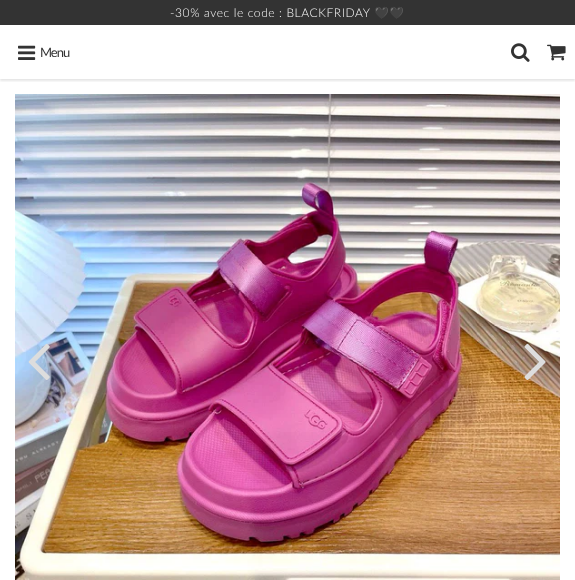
async function draw(canvas) {
	canvas.width = 575;
	canvas.height = 580;
	const c = canvas.getContext('2d');
	c.miterLimit = 4;
	c.fontKerning = 'normal';
	async function loadImage(src) {
		const img = new Image();
		img.src = src;
		await img.decode();
		return img;
	}

	c.fillStyle = '#fff';
	c.fillRect(0, 0, 575, 580);
	c.save();
	c.beginPath();
	c.rect(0, 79, 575, 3);
	c.clip();
	c.fillStyle = '#0000001a';
	c.filter = 'blur(1px)';
	c.beginPath();
	c.rect(0, 27, 575, 54);
	c.fill();
	c.filter = 'none';
	c.restore();
	c.fillStyle = '#333';
	c.fillRect(0, 0, 575, 25);
	c.letterSpacing = '0.6px';
	c.font = '300 12px Lato';
	c.fillStyle = '#fff';
	c.fillText('-30% avec le code : BLACKFRIDAY', 170, 17);
	c.font = '12px Noto Color Emoji';
	c.fillText('🖤🖤', 374, 17);
	c.drawImage(await loadImage('img1.png'), 18, 45, 18, 15);
	c.letterSpacing = '-1px';
	c.font = '13px Lato';
	c.fillStyle = '#333';
	c.fillText('Menu', 40, 57);
	c.drawImage(await loadImage('img2.png'), 511, 43, 19, 19);
	c.drawImage(await loadImage('img3.png'), 547, 44, 19, 17);
	c.drawImage(await loadImage('img4.png'), 15, 94, 545, 486);
	c.drawImage(await loadImage('img5.png'), 28, 343, 22, 37);
	c.drawImage(await loadImage('img6.png'), 524, 343, 22, 37);
}

draw(document.querySelector('canvas'));
